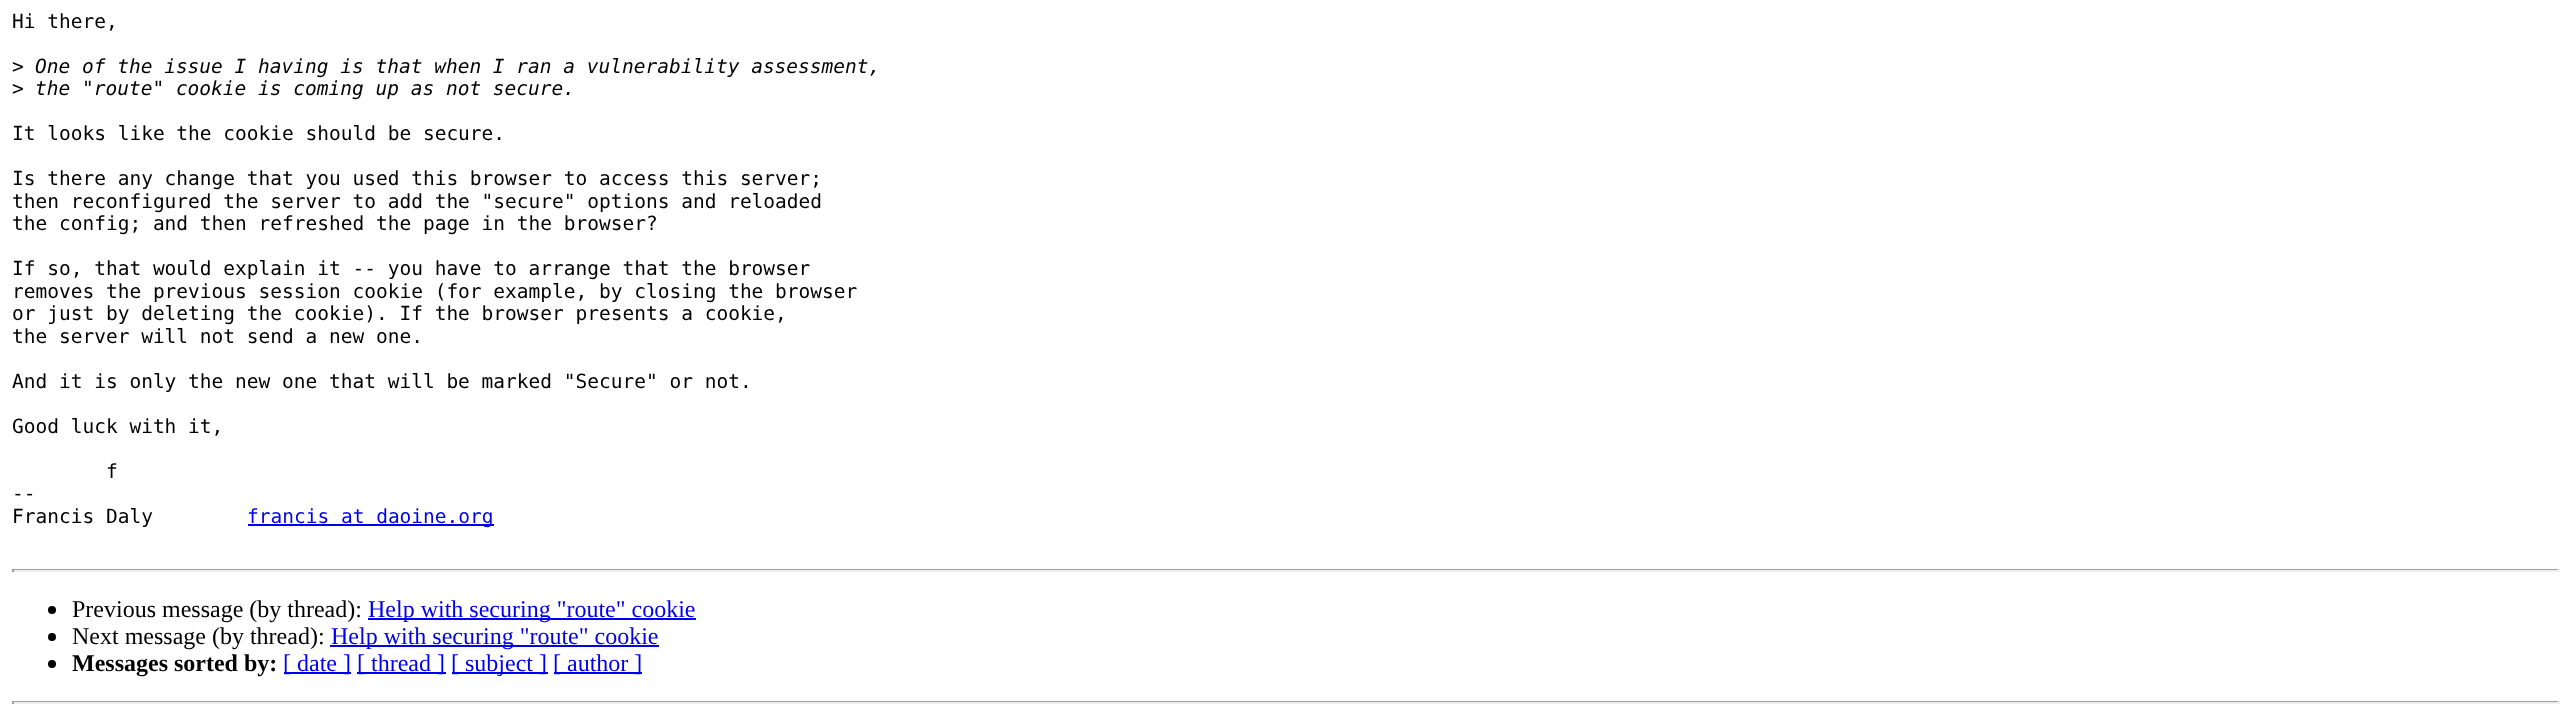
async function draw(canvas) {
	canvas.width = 2570;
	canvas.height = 711;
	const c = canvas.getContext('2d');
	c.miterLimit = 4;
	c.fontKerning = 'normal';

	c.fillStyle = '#fff';
	c.fillRect(0, 0, 2570, 711);
	c.font = '19.5px DejaVu Sans Mono';
	c.fillStyle = '#000';
	c.fillText('Hi there,', 12, 28);
	c.fillText('>', 12, 73);
	c.font = 'italic 19.5px DejaVu Sans Mono';
	c.fillText('One of the issue I having is that when I ran a vulnerability assessment,', 35, 73);
	c.font = '19.5px DejaVu Sans Mono';
	c.fillText('>', 12, 95);
	c.font = 'italic 19.5px DejaVu Sans Mono';
	c.fillText('the "route" cookie is coming up as not secure.', 35, 95);
	c.font = '19.5px DejaVu Sans Mono';
	for (const [text, x, y] of [
		['It looks like the cookie should be secure.', 12, 140],
		['Is there any change that you used this browser to access this server;', 12, 185],
		['then reconfigured the server to add the "secure" options and reloaded', 12, 208],
		['the config; and then refreshed the page in the browser?', 12, 230],
		['If so, that would explain it -- you have to arrange that the browser', 12, 275],
		['removes the previous session cookie (for example, by closing the browser', 12, 298],
		['or just by deleting the cookie). If the browser presents a cookie,', 12, 320],
		['the server will not send a new one.', 12, 343],
		['And it is only the new one that will be marked "Secure" or not.', 12, 388],
		['Good luck with it,', 12, 433],
		['f', 106, 478],
		['--', 12, 500],
		['Francis Daly', 12, 523],
	]) {
		c.fillText(text, x, y);
	}
	c.fillStyle = '#00e';
	c.fillRect(248, 524, 246, 2);
	c.fillText('francis at daoine.org', 247, 523);
	for (const [x, y, w, h, color] of [
		[12, 569, 2547, 1, '#9f9f9f'],
		[2558, 569, 2, 3, '#eee'],
		[12, 570, 2547, 2, '#eee'],
		[12, 569, 2, 3, '#9f9f9f'],
	]) {
		c.fillStyle = color;
		c.fillRect(x, y, w, h);
	}
	c.fillStyle = '#000';
	c.beginPath();
	c.arc(52, 610, 4, 0, 2 * Math.PI);
	c.fill();
	c.font = '24px Liberation Serif';
	c.fillText('Previous message (by thread):', 72, 617);
	c.fillStyle = '#00e';
	c.fillRect(368, 618, 328, 2);
	c.fillText('Help with securing "route" cookie', 368, 617);
	c.fillStyle = '#000';
	c.beginPath();
	c.arc(52, 637, 4, 0, 2 * Math.PI);
	c.fill();
	c.fillText('Next message (by thread):', 72, 644);
	c.fillStyle = '#00e';
	c.fillRect(330, 645, 329, 2);
	c.fillText('Help with securing "route" cookie', 331, 644);
	c.fillStyle = '#000';
	c.beginPath();
	c.arc(52, 664, 4, 0, 2 * Math.PI);
	c.fill();
	c.font = 'bold 24px Liberation Serif';
	c.fillText('Messages sorted by:', 72, 671);
	c.fillStyle = '#00e';
	c.fillRect(284, 672, 67, 2);
	c.font = '24px Liberation Serif';
	c.fillText('[ date ]', 283, 671);
	c.fillRect(357, 672, 89, 2);
	c.fillText('[ thread ]', 357, 671);
	c.fillRect(452, 672, 96, 2);
	c.fillText('[ subject ]', 451, 671);
	c.fillRect(554, 672, 88, 2);
	c.fillText('[ author ]', 553, 671);
	for (const [x, y, w, h, color] of [
		[12, 701, 2547, 1, '#9f9f9f'],
		[2558, 701, 2, 3, '#eee'],
		[12, 702, 2547, 2, '#eee'],
		[12, 701, 2, 3, '#9f9f9f'],
	]) {
		c.fillStyle = color;
		c.fillRect(x, y, w, h);
	}
}

draw(document.querySelector('canvas'));
